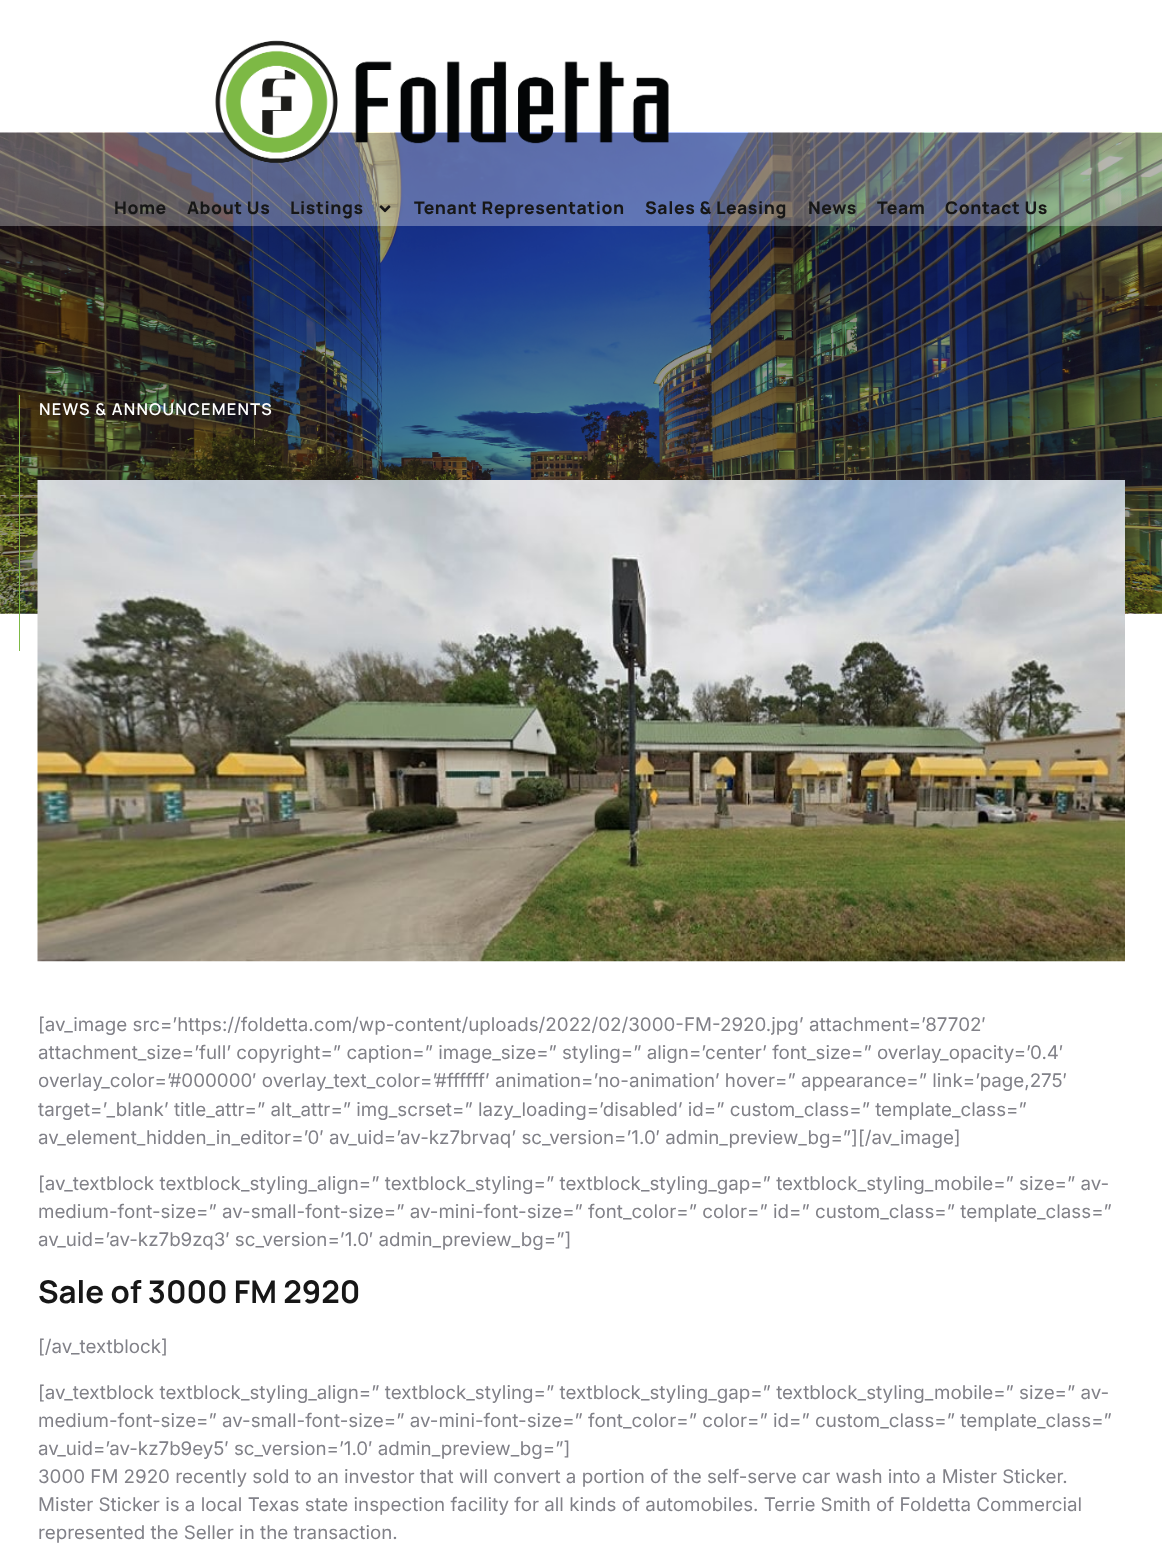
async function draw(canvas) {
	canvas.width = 1162;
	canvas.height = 1560;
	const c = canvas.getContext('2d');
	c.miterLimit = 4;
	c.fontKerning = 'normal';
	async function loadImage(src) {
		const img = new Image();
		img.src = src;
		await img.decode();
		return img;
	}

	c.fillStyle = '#fff';
	c.fillRect(0, 0, 1162, 1560);
	c.drawImage(await loadImage('img3.png'), 0, 132, 1162, 482);
	c.fillStyle = '#ffffff4f';
	c.fillRect(0, 132, 1162, 94);
	c.drawImage(await loadImage('img1.png'), 215, 40, 454, 123);
	c.letterSpacing = '0.6px';
	c.font = '800 17.5px Manrope';
	c.fillStyle = '#171717';
	for (const [text, x, y] of [
		['Home', 114, 214],
		['About Us', 187, 214],
		['Listings', 290, 214],
	]) {
		c.fillText(text, x, y);
	}
	c.drawImage(await loadImage('img2.png'), 379, 205, 12, 8);
	for (const [text, x, y] of [
		['Tenant Representation', 414, 214],
		['Sales & Leasing', 645, 214],
		['News', 808, 214],
		['Team', 877, 214],
		['Contact Us', 945, 214],
	]) {
		c.fillText(text, x, y);
	}
	c.fillStyle = '#7db945';
	c.fillRect(19, 395, 1, 256);
	c.letterSpacing = '1.25px';
	c.font = '600 16.25px Manrope';
	c.fillStyle = '#fff';
	c.fillText('NEWS & ANNOUNCEMENTS', 39, 415);
	c.drawImage(await loadImage('img4.png'), 37, 480, 1088, 482);
	c.letterSpacing = '0px';
	c.font = '18.75px Inter';
	c.fillStyle = '#818188';
	for (const [text, x, y] of [
		['[av_image src=’https://foldetta.com/wp-content/uploads/2022/02/3000-FM-2920.jpg’ attachment=’87702′', 38, 1031],
		['attachment_size=’full’ copyright=” caption=” image_size=” styling=” align=’center’ font_size=” overlay_opacity=’0.4′', 38, 1059],
		['overlay_color=’#000000′ overlay_text_color=’#ffffff’ animation=’no-animation’ hover=” appearance=” link=’page,275′', 38, 1087],
		['target=’_blank’ title_attr=” alt_attr=” img_scrset=” lazy_loading=’disabled’ id=” custom_class=” template_class=”', 38, 1116],
		['av_element_hidden_in_editor=’0′ av_uid=’av-kz7brvaq’ sc_version=’1.0′ admin_preview_bg=”][/av_image]', 38, 1144],
		['[av_textblock textblock_styling_align=” textblock_styling=” textblock_styling_gap=” textblock_styling_mobile=” size=” av-', 38, 1190],
		['medium-font-size=” av-small-font-size=” av-mini-font-size=” font_color=” color=” id=” custom_class=” template_class=”', 38, 1218],
		['av_uid=’av-kz7b9zq3′ sc_version=’1.0′ admin_preview_bg=”]', 38, 1246],
	]) {
		c.fillText(text, x, y);
	}
	c.font = 'bold 31.25px Manrope';
	c.fillStyle = '#171717';
	c.fillText('Sale of 3000 FM 2920', 38, 1303);
	c.font = '18.75px Inter';
	c.fillStyle = '#818188';
	for (const [text, x, y] of [
		['[/av_textblock]', 38, 1353],
		['[av_textblock textblock_styling_align=” textblock_styling=” textblock_styling_gap=” textblock_styling_mobile=” size=” av-', 38, 1399],
		['medium-font-size=” av-small-font-size=” av-mini-font-size=” font_color=” color=” id=” custom_class=” template_class=”', 38, 1427],
		['av_uid=’av-kz7b9ey5′ sc_version=’1.0′ admin_preview_bg=”]', 38, 1455],
		['3000 FM 2920 recently sold to an investor that will convert a portion of the self-serve car wash into a Mister Sticker.', 38, 1483],
		['Mister Sticker is a local Texas state inspection facility for all kinds of automobiles. Terrie Smith of Foldetta Commercial', 38, 1511],
		['represented the Seller in the transaction.', 38, 1539],
	]) {
		c.fillText(text, x, y);
	}
}

draw(document.querySelector('canvas'));
